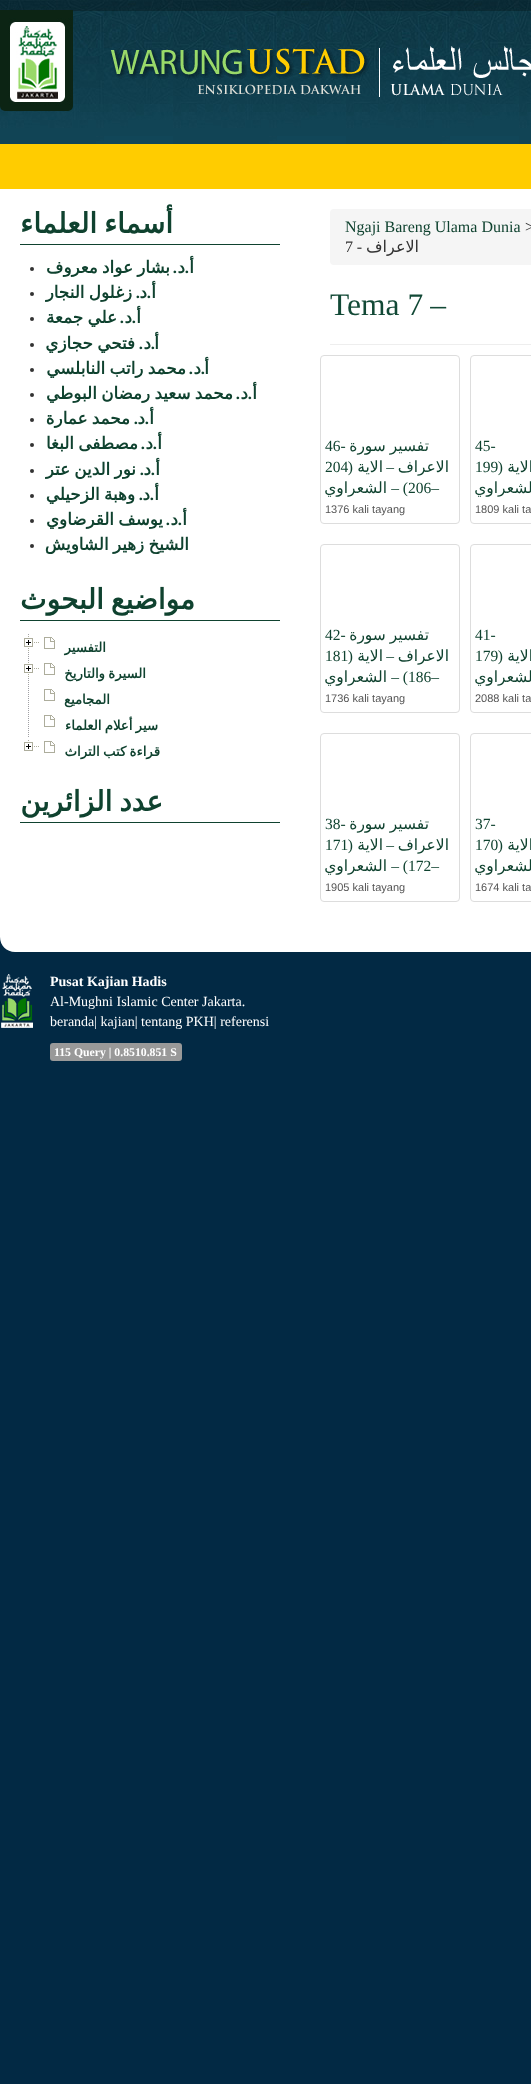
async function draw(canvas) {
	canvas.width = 531;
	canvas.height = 2084;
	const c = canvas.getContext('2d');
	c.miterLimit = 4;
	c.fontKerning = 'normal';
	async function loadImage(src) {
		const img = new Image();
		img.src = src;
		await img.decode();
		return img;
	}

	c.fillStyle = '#022944';
	c.fillRect(0, 0, 531, 2084);
	c.drawImage(await loadImage('img1.png'), 0, 0, 531, 144);
	c.drawImage(await loadImage('img2.png'), 110, 46, 421, 51);
	c.drawImage(await loadImage('img3.png'), 0, 10, 73, 101);
	c.fillStyle = '#fc0';
	c.fillRect(0, 144, 531, 45);
	c.fillStyle = '#fff';
	c.beginPath();
	c.moveTo(0, 189);
	c.lineTo(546, 189);
	c.lineTo(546, 937);
	c.bezierCurveTo(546, 945.5, 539.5, 952, 531, 952);
	c.lineTo(15, 952);
	c.bezierCurveTo(6.5, 952, 0, 945.5, 0, 937);
	c.closePath();
	c.fill();
	c.fillStyle = '#f5f5f5';
	c.beginPath();
	c.roundRect(330, 209, 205, 56, 4);
	c.fill();
	c.font = '16px Liberation Serif';
	c.fillStyle = '#333';
	c.fillText('>', 525, 232);
	c.fillStyle = '#0f422f';
	c.fillText('Ngaji Bareng Ulama Dunia', 345, 232);
	c.direction = 'rtl';
	c.font = '16px DejaVu Sans';
	c.fillStyle = '#333';
	c.fillText('الاعراف', 419, 252);
	c.font = '16px Liberation Serif';
	c.fillText('-', 362, 252);
	c.direction = 'ltr';
	c.fillText('7', 345, 252);
	c.fillStyle = '#eee';
	c.fillRect(330, 344, 201, 1);
	c.direction = 'rtl';
	c.font = '31.5px Liberation Serif';
	c.fillStyle = '#124936';
	c.fillText('–', 446, 315);
	c.direction = 'ltr';
	c.fillText('Tema 7', 330, 315);
	c.beginPath();
	c.roundRect(470.5, 355.5, 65, 168, 3.5);
	c.strokeStyle = '#ddd';
	c.stroke();
	c.font = '15.5px Liberation Serif';
	c.fillStyle = '#0f422f';
	c.fillText('45-', 475, 451);
	c.direction = 'rtl';
	c.font = '15.5px DejaVu Sans';
	c.fillText('الاية', 533, 472);
	c.font = '15.5px Liberation Serif';
	c.fillText('(', 503, 472);
	c.direction = 'ltr';
	c.fillText('199', 475, 472);
	c.direction = 'rtl';
	c.font = '15.5px DejaVu Sans';
	c.fillText('الشعراوي', 537, 493);
	c.direction = 'ltr';
	c.font = '11px Liberation Sans';
	c.fillStyle = '#555';
	c.fillText('1809 kali ta', 475, 513);
	c.beginPath();
	c.roundRect(320.5, 355.5, 139, 168, 3.5);
	c.stroke();
	c.wordSpacing = '-1px';
	c.direction = 'rtl';
	c.font = '15.5px DejaVu Sans';
	c.fillStyle = '#0f422f';
	c.fillText('تفسير سورة', 429, 451);
	c.wordSpacing = '0px';
	c.direction = 'ltr';
	c.font = '15.5px Liberation Serif';
	c.fillText('46-', 325, 451);
	c.direction = 'rtl';
	c.font = '15.5px DejaVu Sans';
	c.fillText('الاعراف', 449, 472);
	c.font = '15.5px Liberation Serif';
	c.fillText('–', 394, 472);
	c.font = '15.5px DejaVu Sans';
	c.fillText('الاية', 383, 472);
	c.font = '15.5px Liberation Serif';
	c.fillText('(', 353, 472);
	c.direction = 'ltr';
	c.fillText('204', 325, 472);
	c.direction = 'rtl';
	c.fillText(') –', 408, 493);
	c.direction = 'ltr';
	c.fillText('206–', 408, 493);
	c.direction = 'rtl';
	c.font = '15.5px DejaVu Sans';
	c.fillText('الشعراوي', 387, 493);
	c.direction = 'ltr';
	c.font = '11px Liberation Sans';
	c.fillStyle = '#555';
	c.fillText('1376 kali tayang', 325, 513);
	c.beginPath();
	c.roundRect(470.5, 544.5, 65, 168, 3.5);
	c.stroke();
	c.font = '15.5px Liberation Serif';
	c.fillStyle = '#0f422f';
	c.fillText('41-', 475, 640);
	c.direction = 'rtl';
	c.font = '15.5px DejaVu Sans';
	c.fillText('الاية', 533, 661);
	c.font = '15.5px Liberation Serif';
	c.fillText('(', 503, 661);
	c.direction = 'ltr';
	c.fillText('179', 475, 661);
	c.direction = 'rtl';
	c.font = '15.5px DejaVu Sans';
	c.fillText('الشعراوي', 537, 682);
	c.direction = 'ltr';
	c.font = '11px Liberation Sans';
	c.fillStyle = '#555';
	c.fillText('2088 kali ta', 475, 702);
	c.beginPath();
	c.roundRect(320.5, 544.5, 139, 168, 3.5);
	c.stroke();
	c.wordSpacing = '-1px';
	c.direction = 'rtl';
	c.font = '15.5px DejaVu Sans';
	c.fillStyle = '#0f422f';
	c.fillText('تفسير سورة', 429, 640);
	c.wordSpacing = '0px';
	c.direction = 'ltr';
	c.font = '15.5px Liberation Serif';
	c.fillText('42-', 325, 640);
	c.direction = 'rtl';
	c.font = '15.5px DejaVu Sans';
	c.fillText('الاعراف', 449, 661);
	c.font = '15.5px Liberation Serif';
	c.fillText('–', 394, 661);
	c.font = '15.5px DejaVu Sans';
	c.fillText('الاية', 383, 661);
	c.font = '15.5px Liberation Serif';
	c.fillText('(', 353, 661);
	c.direction = 'ltr';
	c.fillText('181', 325, 661);
	c.fillText('186–', 408, 682);
	c.direction = 'rtl';
	c.fillText(') –', 408, 682);
	c.font = '15.5px DejaVu Sans';
	c.fillText('الشعراوي', 387, 682);
	c.direction = 'ltr';
	c.font = '11px Liberation Sans';
	c.fillStyle = '#555';
	c.fillText('1736 kali tayang', 325, 702);
	c.beginPath();
	c.roundRect(470.5, 733.5, 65, 168, 3.5);
	c.stroke();
	c.font = '15.5px Liberation Serif';
	c.fillStyle = '#0f422f';
	c.fillText('37-', 475, 829);
	c.direction = 'rtl';
	c.font = '15.5px DejaVu Sans';
	c.fillText('الاية', 533, 850);
	c.font = '15.5px Liberation Serif';
	c.fillText('(', 503, 850);
	c.direction = 'ltr';
	c.fillText('170', 475, 850);
	c.direction = 'rtl';
	c.font = '15.5px DejaVu Sans';
	c.fillText('الشعراوي', 537, 871);
	c.direction = 'ltr';
	c.font = '11px Liberation Sans';
	c.fillStyle = '#555';
	c.fillText('1674 kali ta', 475, 891);
	c.beginPath();
	c.roundRect(320.5, 733.5, 139, 168, 3.5);
	c.stroke();
	c.wordSpacing = '-1px';
	c.direction = 'rtl';
	c.font = '15.5px DejaVu Sans';
	c.fillStyle = '#0f422f';
	c.fillText('تفسير سورة', 429, 829);
	c.wordSpacing = '0px';
	c.direction = 'ltr';
	c.font = '15.5px Liberation Serif';
	c.fillText('38-', 325, 829);
	c.direction = 'rtl';
	c.font = '15.5px DejaVu Sans';
	c.fillText('الاعراف', 449, 850);
	c.font = '15.5px Liberation Serif';
	c.fillText('–', 394, 850);
	c.font = '15.5px DejaVu Sans';
	c.fillText('الاية', 383, 850);
	c.font = '15.5px Liberation Serif';
	c.fillText('(', 353, 850);
	c.direction = 'ltr';
	c.fillText('171', 325, 850);
	c.fillText('172–', 408, 871);
	c.direction = 'rtl';
	c.fillText(') –', 408, 871);
	c.font = '15.5px DejaVu Sans';
	c.fillText('الشعراوي', 387, 871);
	c.direction = 'ltr';
	c.font = '11px Liberation Sans';
	c.fillStyle = '#555';
	c.fillText('1905 kali tayang', 325, 891);
	c.fillStyle = '#0f422f';
	c.fillRect(20, 244, 260, 1);
	c.wordSpacing = '-2px';
	c.direction = 'rtl';
	c.font = 'bold 28px DejaVu Sans';
	c.fillText('أسماء العلماء', 173, 233);
	c.wordSpacing = '0px';
	c.font = 'bold 16.75px DejaVu Sans';
	c.fillText('أ', 194, 273);
	c.fillText('د', 185, 273);
	c.wordSpacing = '-1px';
	c.fillText('بشار عواد معروف', 170, 273);
	c.fillStyle = '#333';
	c.beginPath();
	c.arc(32, 269, 2, 0, 2 * Math.PI);
	c.fill();
	c.wordSpacing = '0px';
	c.font = 'bold 16.75px Liberation Serif';
	c.fillStyle = '#0f422f';
	c.fillText('.', 189, 273);
	c.fillText('.', 177, 273);
	c.font = 'bold 16.75px DejaVu Sans';
	c.fillText('أ', 156, 298);
	c.fillText('د', 147, 298);
	c.wordSpacing = '-1px';
	c.fillText('زغلول النجار', 132, 298);
	c.fillStyle = '#333';
	c.beginPath();
	c.arc(32, 294, 2, 0, 2 * Math.PI);
	c.fill();
	c.wordSpacing = '0px';
	c.font = 'bold 16.75px Liberation Serif';
	c.fillStyle = '#0f422f';
	c.fillText('.', 151, 298);
	c.fillText('.', 140, 298);
	c.font = 'bold 16.75px DejaVu Sans';
	c.fillText('أ', 141, 323);
	c.fillText('د', 132, 323);
	c.wordSpacing = '-1px';
	c.fillText('علي جمعة', 117, 323);
	c.fillStyle = '#333';
	c.beginPath();
	c.arc(32, 319, 2, 0, 2 * Math.PI);
	c.fill();
	c.wordSpacing = '0px';
	c.font = 'bold 16.75px Liberation Serif';
	c.fillStyle = '#0f422f';
	c.fillText('.', 136, 323);
	c.fillText('.', 124, 323);
	c.font = 'bold 16.75px DejaVu Sans';
	c.fillText('أ', 159, 349);
	c.fillText('د', 151, 349);
	c.wordSpacing = '-1px';
	c.fillText('فتحي حجازي', 135, 349);
	c.fillStyle = '#333';
	c.beginPath();
	c.arc(32, 345, 2, 0, 2 * Math.PI);
	c.fill();
	c.wordSpacing = '0px';
	c.font = 'bold 16.75px Liberation Serif';
	c.fillStyle = '#0f422f';
	c.fillText('.', 155, 349);
	c.fillText('.', 143, 349);
	c.font = 'bold 16.75px DejaVu Sans';
	c.fillText('أ', 209, 374);
	c.fillText('د', 201, 374);
	c.wordSpacing = '-1px';
	c.fillText('محمد راتب النابلسي', 186, 374);
	c.fillStyle = '#333';
	c.beginPath();
	c.arc(32, 370, 2, 0, 2 * Math.PI);
	c.fill();
	c.wordSpacing = '0px';
	c.font = 'bold 16.75px Liberation Serif';
	c.fillStyle = '#0f422f';
	c.fillText('.', 205, 374);
	c.fillText('.', 193, 374);
	c.font = 'bold 16.75px DejaVu Sans';
	c.fillText('أ', 257, 399);
	c.fillText('د', 248, 399);
	c.wordSpacing = '-1px';
	c.fillText('محمد سعيد رمضان البوطي', 233, 399);
	c.fillStyle = '#333';
	c.beginPath();
	c.arc(32, 395, 2, 0, 2 * Math.PI);
	c.fill();
	c.wordSpacing = '0px';
	c.font = 'bold 16.75px Liberation Serif';
	c.fillStyle = '#0f422f';
	c.fillText('.', 252, 399);
	c.fillText('.', 240, 399);
	c.font = 'bold 16.75px DejaVu Sans';
	c.fillText('أ', 154, 424);
	c.fillText('د', 145, 424);
	c.wordSpacing = '-1px';
	c.fillText('محمد عمارة', 130, 424);
	c.fillStyle = '#333';
	c.beginPath();
	c.arc(32, 420, 2, 0, 2 * Math.PI);
	c.fill();
	c.wordSpacing = '0px';
	c.font = 'bold 16.75px Liberation Serif';
	c.fillStyle = '#0f422f';
	c.fillText('.', 149, 424);
	c.fillText('.', 138, 424);
	c.font = 'bold 16.75px DejaVu Sans';
	c.fillText('أ', 162, 449);
	c.fillText('د', 153, 449);
	c.wordSpacing = '-1px';
	c.fillText('مصطفى البغا', 138, 449);
	c.fillStyle = '#333';
	c.beginPath();
	c.arc(32, 445, 2, 0, 2 * Math.PI);
	c.fill();
	c.wordSpacing = '0px';
	c.font = 'bold 16.75px Liberation Serif';
	c.fillStyle = '#0f422f';
	c.fillText('.', 157, 449);
	c.fillText('.', 145, 449);
	c.font = 'bold 16.75px DejaVu Sans';
	c.fillText('أ', 160, 475);
	c.fillText('د', 151, 475);
	c.wordSpacing = '-1px';
	c.fillText('نور الدين عتر', 136, 475);
	c.fillStyle = '#333';
	c.beginPath();
	c.arc(32, 471, 2, 0, 2 * Math.PI);
	c.fill();
	c.wordSpacing = '0px';
	c.font = 'bold 16.75px Liberation Serif';
	c.fillStyle = '#0f422f';
	c.fillText('.', 155, 475);
	c.fillText('.', 144, 475);
	c.font = 'bold 16.75px DejaVu Sans';
	c.fillText('أ', 159, 500);
	c.fillText('د', 150, 500);
	c.wordSpacing = '-1px';
	c.fillText('وهبة الزحيلي', 135, 500);
	c.fillStyle = '#333';
	c.beginPath();
	c.arc(32, 496, 2, 0, 2 * Math.PI);
	c.fill();
	c.wordSpacing = '0px';
	c.font = 'bold 16.75px Liberation Serif';
	c.fillStyle = '#0f422f';
	c.fillText('.', 154, 500);
	c.fillText('.', 143, 500);
	c.font = 'bold 16.75px DejaVu Sans';
	c.fillText('أ', 187, 525);
	c.fillText('د', 178, 525);
	c.wordSpacing = '-1px';
	c.fillText('يوسف القرضاوي', 163, 525);
	c.fillStyle = '#333';
	c.beginPath();
	c.arc(32, 521, 2, 0, 2 * Math.PI);
	c.fill();
	c.wordSpacing = '0px';
	c.font = 'bold 16.75px Liberation Serif';
	c.fillStyle = '#0f422f';
	c.fillText('.', 182, 525);
	c.fillText('.', 170, 525);
	c.wordSpacing = '-1px';
	c.font = 'bold 16.75px DejaVu Sans';
	c.fillText('الشيخ زهير الشاويش', 189, 550);
	c.fillStyle = '#333';
	c.beginPath();
	c.arc(32, 546, 2, 0, 2 * Math.PI);
	c.fill();
	c.fillStyle = '#0f422f';
	c.fillRect(20, 620, 260, 1);
	c.wordSpacing = '-2px';
	c.font = 'bold 28px DejaVu Sans';
	c.fillText('مواضيع البحوث', 195, 609);
	c.drawImage(await loadImage('img4.png'), 28, 634, 1, 25);
	c.wordSpacing = '0px';
	c.font = 'bold 13.25px DejaVu Sans';
	c.fillText('التفسير', 106, 652);
	c.drawImage(await loadImage('img5.png'), 44, 637, 11, 12);
	c.drawImage(await loadImage('img6.png'), 24, 636, 15, 15);
	c.drawImage(await loadImage('img4.png'), 28, 660, 1, 25);
	c.wordSpacing = '-1px';
	c.fillText('السيرة والتاريخ', 146, 678);
	c.drawImage(await loadImage('img5.png'), 44, 663, 11, 12);
	c.drawImage(await loadImage('img6.png'), 24, 662, 15, 15);
	c.drawImage(await loadImage('img4.png'), 28, 686, 1, 25);
	c.wordSpacing = '0px';
	c.fillText('المجاميع', 110, 704);
	c.drawImage(await loadImage('img5.png'), 44, 689, 11, 12);
	c.drawImage(await loadImage('img4.png'), 28, 712, 1, 25);
	c.wordSpacing = '-1px';
	c.fillText('سير أعلام العلماء', 158, 730);
	c.drawImage(await loadImage('img5.png'), 44, 715, 11, 12);
	c.fillText('قراءة كتب التراث', 160, 756);
	c.drawImage(await loadImage('img5.png'), 44, 741, 11, 12);
	c.drawImage(await loadImage('img7.png'), 24, 740, 15, 11);
	c.fillRect(20, 822, 260, 1);
	c.wordSpacing = '-2px';
	c.font = 'bold 28px DejaVu Sans';
	c.fillText('عدد الزائرين', 163, 811);
	c.wordSpacing = '0px';
	c.direction = 'ltr';
	c.font = 'bold 14px Liberation Serif';
	c.fillStyle = '#fff';
	c.fillText('Pusat Kajian Hadis', 50, 986);
	c.font = '14px Liberation Serif';
	c.fillText('Al-Mughni Islamic Center Jakarta.', 50, 1006);
	c.fillText('beranda| kajian| tentang PKH| referensi', 50, 1026);
	c.drawImage(await loadImage('img8.png'), 1, 974, 32, 54);
	c.fillStyle = '#999';
	c.beginPath();
	c.roundRect(50, 1043, 132, 18, 3);
	c.fill();
	c.font = 'bold 11.75px Liberation Serif';
	c.fillStyle = '#fff';
	c.fillText('115 Query | 0.8510.851 S', 54, 1056);
}

draw(document.querySelector('canvas'));
